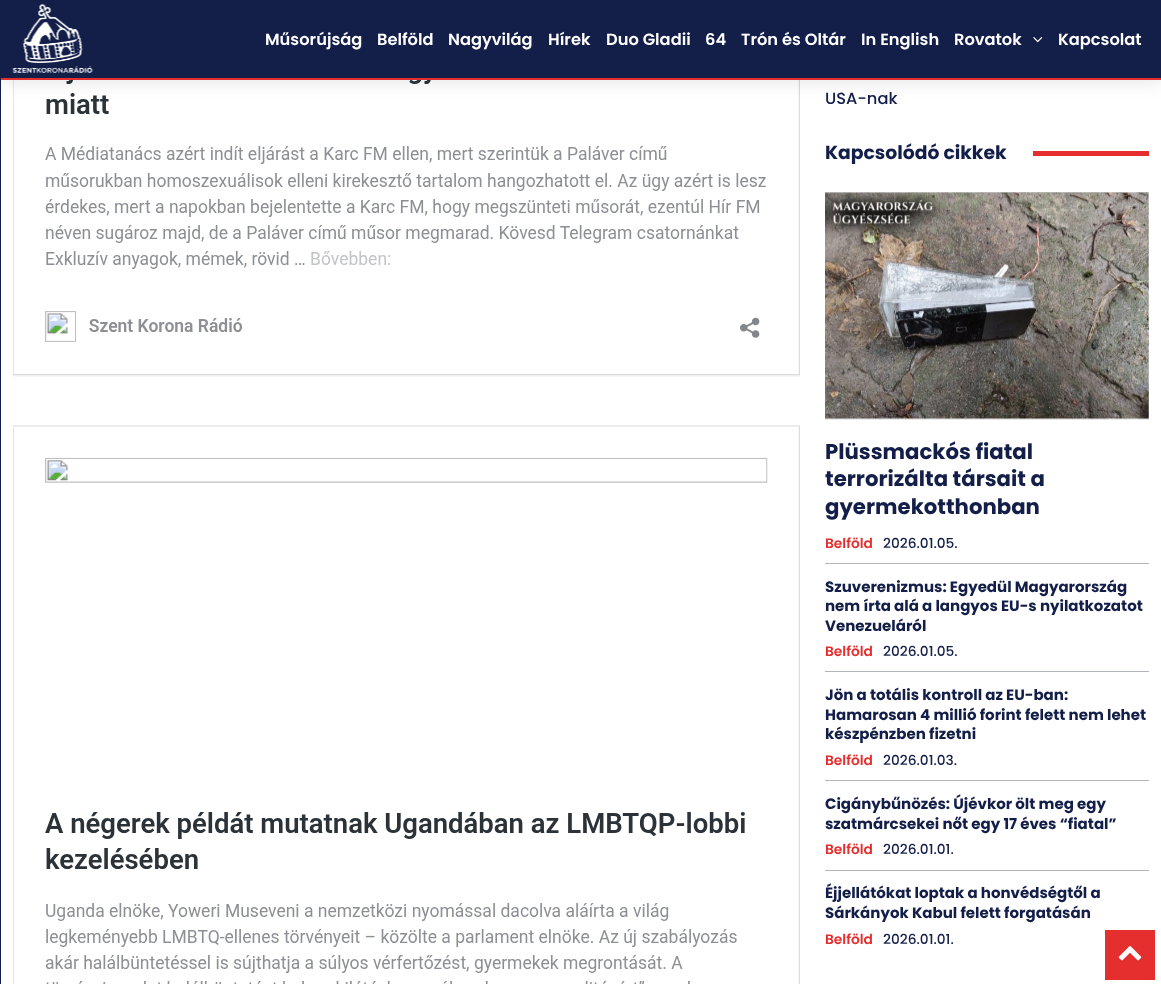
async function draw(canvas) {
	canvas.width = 1161;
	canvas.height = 984;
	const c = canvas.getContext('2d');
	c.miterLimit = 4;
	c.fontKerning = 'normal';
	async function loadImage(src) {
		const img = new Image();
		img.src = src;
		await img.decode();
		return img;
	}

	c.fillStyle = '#131f49';
	c.fillRect(0, 0, 1161, 984);
	c.drawImage(await loadImage('img1.png'), 12, 4, 81, 69);
	c.fillStyle = '#e52e2e';
	c.fillRect(1, 78, 1160, 2);
	c.fillStyle = '#fff';
	c.fillRect(1, 80, 1160, 904);
	c.drawImage(await loadImage('img3.png'), 13, 80, 787, 297);
	c.save();
	c.beginPath();
	c.moveTo(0, 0);
	c.lineTo(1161, 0);
	c.lineTo(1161, 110);
	c.lineTo(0, 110);
	c.closePath();
	c.moveTo(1, 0);
	c.lineTo(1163, 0);
	c.lineTo(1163, 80);
	c.lineTo(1, 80);
	c.closePath();
	c.clip('evenodd');
	c.fillStyle = '#0000001f';
	c.filter = 'blur(9.5px)';
	c.beginPath();
	c.rect(1, 0, 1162, 80);
	c.fill();
	c.filter = 'none';
	c.restore();
	c.font = '600 16.25px Poppins';
	for (const [text, x, y] of [
		['Műsorújság', 265, 45],
		['Belföld', 377, 45],
		['Nagyvilág', 448, 45],
		['Hírek', 548, 45],
		['Duo Gladii', 606, 45],
		['64', 705, 45],
		['Trón és Oltár', 741, 45],
		['In English', 861, 45],
		['Rovatok', 954, 45],
	]) {
		c.fillText(text, x, y);
	}
	c.drawImage(await loadImage('img2.png'), 1033, 37, 10, 6);
	c.fillText('Kapcsolat', 1058, 45);
	c.drawImage(await loadImage('img4.png'), 13, 425, 787, 559);
	c.font = '500 16.25px Poppins';
	c.fillStyle = '#131f49';
	c.fillText('USA-nak', 825, 104);
	c.font = 'bold 18.75px Poppins';
	c.fillText('Kapcsolódó cikkek', 825, 159);
	c.fillStyle = '#e52e2e';
	c.fillRect(1033, 151, 116, 5);
	c.drawImage(await loadImage('img5.png'), 825, 192, 324, 228);
	c.font = 'bold 21.25px Poppins';
	c.fillStyle = '#131f49';
	for (const [text, x, y] of [
		['Plüssmackós fiatal', 825, 459],
		['terrorizálta társait a', 825, 486],
		['gyermekotthonban', 825, 514],
	]) {
		c.fillText(text, x, y);
	}
	c.font = '600 13.75px Poppins';
	c.fillStyle = '#e52e2e';
	c.fillText('Belföld', 825, 548);
	c.font = '500 13.75px Poppins';
	c.fillStyle = '#131f49';
	c.fillText('2026.01.05.', 883, 548);
	c.fillStyle = '#b1b4bc';
	c.fillRect(825, 563, 324, 1);
	c.font = 'bold 15px Poppins';
	c.fillStyle = '#131f49';
	for (const [text, x, y] of [
		['Szuverenizmus: Egyedül Magyarország', 825, 592],
		['nem írta alá a langyos EU-s nyilatkozatot', 825, 611],
		['Venezueláról', 825, 631],
	]) {
		c.fillText(text, x, y);
	}
	c.font = '600 13.75px Poppins';
	c.fillStyle = '#e52e2e';
	c.fillText('Belföld', 825, 656);
	c.font = '500 13.75px Poppins';
	c.fillStyle = '#131f49';
	c.fillText('2026.01.05.', 883, 656);
	c.fillStyle = '#b1b4bc';
	c.fillRect(825, 671, 324, 1);
	c.font = 'bold 15px Poppins';
	c.fillStyle = '#131f49';
	for (const [text, x, y] of [
		['Jön a totális kontroll az EU-ban:', 825, 700],
		['Hamarosan 4 millió forint felett nem lehet', 825, 720],
		['készpénzben fizetni', 825, 739],
	]) {
		c.fillText(text, x, y);
	}
	c.font = '600 13.75px Poppins';
	c.fillStyle = '#e52e2e';
	c.fillText('Belföld', 825, 765);
	c.font = '500 13.75px Poppins';
	c.fillStyle = '#131f49';
	c.fillText('2026.01.03.', 883, 765);
	c.fillStyle = '#b1b4bc';
	c.fillRect(825, 780, 324, 1);
	c.font = 'bold 15px Poppins';
	c.fillStyle = '#131f49';
	c.fillText('Cigánybűnözés: Újévkor ölt meg egy', 825, 809);
	c.fillText('szatmárcsekei nőt egy 17 éves “fiatal”', 825, 829);
	c.font = '600 13.75px Poppins';
	c.fillStyle = '#e52e2e';
	c.fillText('Belföld', 825, 854);
	c.font = '500 13.75px Poppins';
	c.fillStyle = '#131f49';
	c.fillText('2026.01.01.', 883, 854);
	c.fillStyle = '#b1b4bc';
	c.fillRect(825, 870, 324, 1);
	c.font = 'bold 15px Poppins';
	c.fillStyle = '#131f49';
	c.fillText('Éjjellátókat loptak a honvédségtől a', 825, 898);
	c.fillText('Sárkányok Kabul felett forgatásán', 825, 918);
	c.font = '600 13.75px Poppins';
	c.fillStyle = '#e52e2e';
	c.fillText('Belföld', 825, 944);
	c.font = '500 13.75px Poppins';
	c.fillStyle = '#131f49';
	c.fillText('2026.01.01.', 883, 944);
	c.fillStyle = '#e52e2e';
	c.fillRect(1105, 930, 50, 50);
	c.drawImage(await loadImage('img6.png'), 1118, 946, 24, 15);
}

draw(document.querySelector('canvas'));
